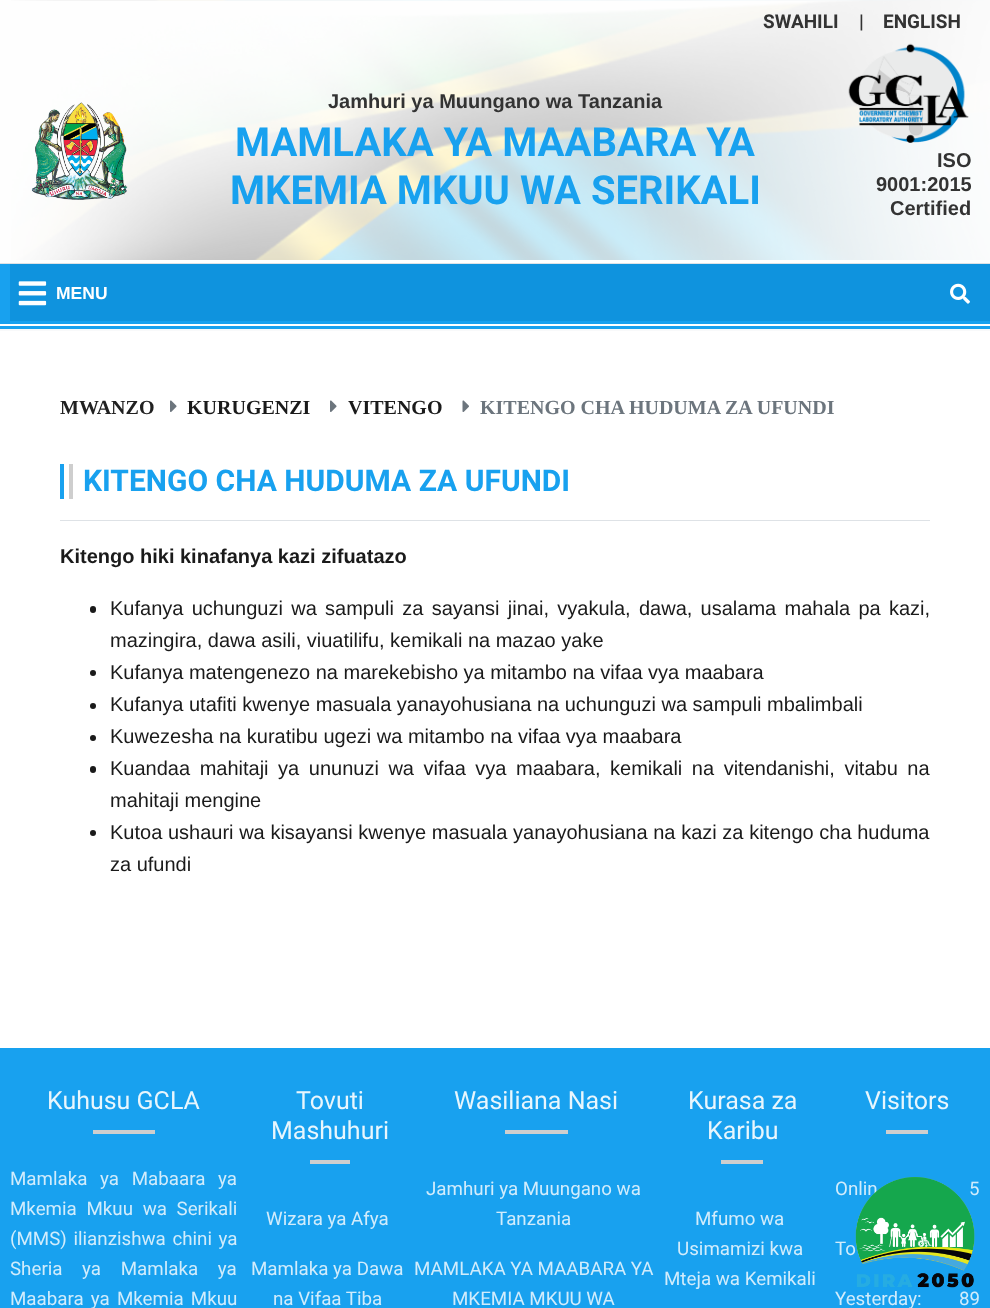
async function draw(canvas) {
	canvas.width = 990;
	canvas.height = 1308;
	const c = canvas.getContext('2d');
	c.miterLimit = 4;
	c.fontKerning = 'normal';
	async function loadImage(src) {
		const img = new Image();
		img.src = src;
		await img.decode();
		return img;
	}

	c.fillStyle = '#f8f9fa';
	c.fillRect(0, 0, 990, 1308);
	c.fillStyle = '#fefefe';
	c.fillRect(0, 0, 990, 260);
	c.drawImage(await loadImage('img1.png'), 11, 0, 979, 260);
	c.font = 'bold 19px Roboto';
	c.fillStyle = '#333';
	for (const [text, x, y] of [
		['SWAHILI', 763, 28],
		['|', 859, 28],
		['ENGLISH', 883, 28],
	]) {
		c.fillText(text, x, y);
	}
	c.drawImage(await loadImage('img2.png'), 31, 102, 97, 98);
	c.font = 'bold 20px Liberation Sans';
	c.fillText('Jamhuri ya Muungano wa Tanzania', 328, 108);
	c.font = 'bold 40px Roboto';
	c.fillStyle = '#18a1ef';
	c.fillText('MAMLAKA YA MAABARA YA', 235, 156);
	c.fillText('MKEMIA MKUU WA SERIKALI', 230, 204);
	c.drawImage(await loadImage('img3.png'), 848, 43, 121, 100);
	c.font = 'bold 20px Liberation Sans';
	c.fillStyle = '#333';
	for (const [text, x, y] of [
		['ISO', 937, 167],
		['9001:2015', 876, 191],
		['Certified', 890, 215],
	]) {
		c.fillText(text, x, y);
	}
	for (const [x, y, w, h, color] of [
		[0, 260, 990, 3, '#fff'],
		[0, 324, 990, 2, '#fff'],
		[0, 326, 990, 3, '#18a1ef'],
		[10, 264, 980, 57, '#0f93de'],
		[0, 263, 990, 1, '#dee2e6'],
		[0, 264, 10, 57, '#18a1ef'],
	]) {
		c.fillStyle = color;
		c.fillRect(x, y, w, h);
	}
	c.drawImage(await loadImage('img4.png'), 18, 281, 29, 25);
	c.font = 'bold 17.5px Liberation Sans';
	c.fillStyle = '#fff';
	c.fillText('MENU', 56, 299);
	c.drawImage(await loadImage('img5.png'), 950, 283, 20, 21);
	c.fillStyle = '#18a1ef';
	c.fillRect(0, 321, 990, 3);
	c.fillStyle = '#fff';
	c.fillRect(0, 331, 990, 717);
	c.font = 'bold 20px Liberation Serif';
	c.fillStyle = '#212121';
	c.fillText('MWANZO', 60, 414);
	c.drawImage(await loadImage('img6.png'), 170, 400, 7, 12);
	c.fillStyle = '#1a1a1a';
	c.fillText('KURUGENZI', 187, 414);
	c.drawImage(await loadImage('img6.png'), 330, 400, 7, 12);
	c.fillText('VITENGO', 348, 414);
	c.drawImage(await loadImage('img7.png'), 462, 400, 7, 12);
	c.fillStyle = '#6c757d';
	c.fillText('KITENGO CHA HUDUMA ZA UFUNDI', 480, 414);
	c.fillStyle = '#dee2e6';
	c.fillRect(60, 520, 870, 1);
	c.font = 'bold 30px Roboto';
	c.fillStyle = '#18a1ef';
	c.fillText('KITENGO CHA HUDUMA ZA UFUNDI', 83, 491);
	c.fillRect(60, 464, 4, 35);
	c.fillStyle = '#cecece';
	c.fillRect(69, 464, 4, 35);
	c.font = 'bold 20px Liberation Sans';
	c.fillStyle = '#1a1a1a';
	c.fillText('Kitengo hiki kinafanya kazi zifuatazo', 60, 563);
	c.beginPath();
	c.roundRect(90, 606, 6, 7, 3);
	c.fill();
	c.wordSpacing = '2.75px';
	c.font = '20px Liberation Sans';
	c.fillText('Kufanya uchunguzi wa sampuli za sayansi jinai, vyakula, dawa, usalama mahala pa kazi,', 110, 615);
	c.wordSpacing = '0px';
	c.fillText('mazingira, dawa asili, viuatilifu, kemikali na mazao yake', 110, 647);
	c.beginPath();
	c.arc(93, 673, 3, 0, 2 * Math.PI);
	c.fill();
	c.fillText('Kufanya matengenezo na marekebisho ya mitambo na vifaa vya maabara', 110, 679);
	c.beginPath();
	c.arc(93, 706, 3, 0, 2 * Math.PI);
	c.fill();
	c.fillText('Kufanya utafiti kwenye masuala yanayohusiana na uchunguzi wa sampuli mbalimbali', 110, 711);
	c.beginPath();
	c.arc(93, 738, 3, 0, 2 * Math.PI);
	c.fill();
	c.fillText('Kuwezesha na kuratibu ugezi wa mitambo na vifaa vya maabara', 110, 743);
	c.beginPath();
	c.roundRect(90, 766, 6, 7, 3);
	c.fill();
	c.wordSpacing = '4px';
	c.fillText('Kuandaa mahitaji ya ununuzi wa vifaa vya maabara, kemikali na vitendanishi, vitabu na', 110, 775);
	c.wordSpacing = '0px';
	c.fillText('mahitaji mengine', 110, 807);
	c.beginPath();
	c.arc(93, 833, 3, 0, 2 * Math.PI);
	c.fill();
	c.wordSpacing = '0.1px';
	c.fillText('Kutoa ushauri wa kisayansi kwenye masuala yanayohusiana na kazi za kitengo cha huduma', 110, 839);
	c.wordSpacing = '0px';
	c.fillText('za ufundi', 110, 871);
	c.fillStyle = '#18a1ef';
	c.fillRect(0, 1048, 990, 260);
	c.font = '25px Roboto';
	c.fillStyle = '#e8f6fd';
	c.fillText('Kuhusu GCLA', 47, 1109);
	c.fillStyle = '#cecece';
	c.fillRect(93, 1130, 62, 4);
	c.wordSpacing = '8px';
	c.font = '18.75px Roboto';
	c.fillStyle = '#d1ecfc';
	c.fillText('Mamlaka ya Mabaara ya', 10, 1185);
	c.wordSpacing = '5px';
	c.fillText('Mkemia Mkuu wa Serikali', 10, 1215);
	c.wordSpacing = '2px';
	c.fillText('(MMS) ilianzishwa chini ya', 10, 1245);
	c.wordSpacing = '15px';
	c.fillText('Sheria ya Mamlaka ya', 10, 1275);
	c.wordSpacing = '2.5px';
	c.fillText('Maabara ya Mkemia Mkuu', 10, 1305);
	c.wordSpacing = '0px';
	c.font = '25px Roboto';
	c.fillStyle = '#e8f6fd';
	c.fillText('Tovuti', 296, 1109);
	c.fillText('Mashuhuri', 271, 1139);
	c.fillStyle = '#cecece';
	c.fillRect(310, 1160, 40, 4);
	c.font = '18.75px Roboto';
	c.fillStyle = '#d1ecfc';
	for (const [text, x, y] of [
		['Wizara ya Afya', 266, 1225],
		['Mamlaka ya Dawa', 251, 1275],
		['na Vifaa Tiba', 273, 1305],
	]) {
		c.fillText(text, x, y);
	}
	c.font = '25px Roboto';
	c.fillStyle = '#e8f6fd';
	c.fillText('Wasiliana Nasi', 454, 1109);
	c.fillStyle = '#cecece';
	c.fillRect(505, 1130, 63, 4);
	c.font = '18.75px Roboto';
	c.fillStyle = '#d1ecfc';
	for (const [text, x, y] of [
		['Jamhuri ya Muungano wa', 426, 1195],
		['Tanzania', 496, 1225],
		['MAMLAKA YA MAABARA YA', 414, 1275],
		['MKEMIA MKUU WA', 452, 1305],
	]) {
		c.fillText(text, x, y);
	}
	c.font = '25px Roboto';
	c.fillStyle = '#e8f6fd';
	c.fillText('Kurasa za', 688, 1109);
	c.fillText('Karibu', 707, 1139);
	c.fillStyle = '#cecece';
	c.fillRect(721, 1160, 42, 4);
	c.font = '18.75px Roboto';
	c.fillStyle = '#d1ecfc';
	for (const [text, x, y] of [
		['Mfumo wa', 695, 1225],
		['Usimamizi kwa', 677, 1255],
		['Mteja wa Kemikali', 664, 1285],
	]) {
		c.fillText(text, x, y);
	}
	c.font = '25px Roboto';
	c.fillStyle = '#e8f6fd';
	c.fillText('Visitors', 865, 1109);
	c.fillStyle = '#cecece';
	c.fillRect(886, 1130, 42, 4);
	c.font = '18.75px Roboto';
	c.fillStyle = '#d1ecfc';
	for (const [text, x, y] of [
		['Onlin', 835, 1195],
		['5', 969, 1195],
		['To', 835, 1255],
		['Yesterday:', 835, 1305],
		['89', 959, 1305],
	]) {
		c.fillText(text, x, y);
	}
	c.drawImage(await loadImage('img8.png'), 855, 1177, 120, 111);
}

draw(document.querySelector('canvas'));
